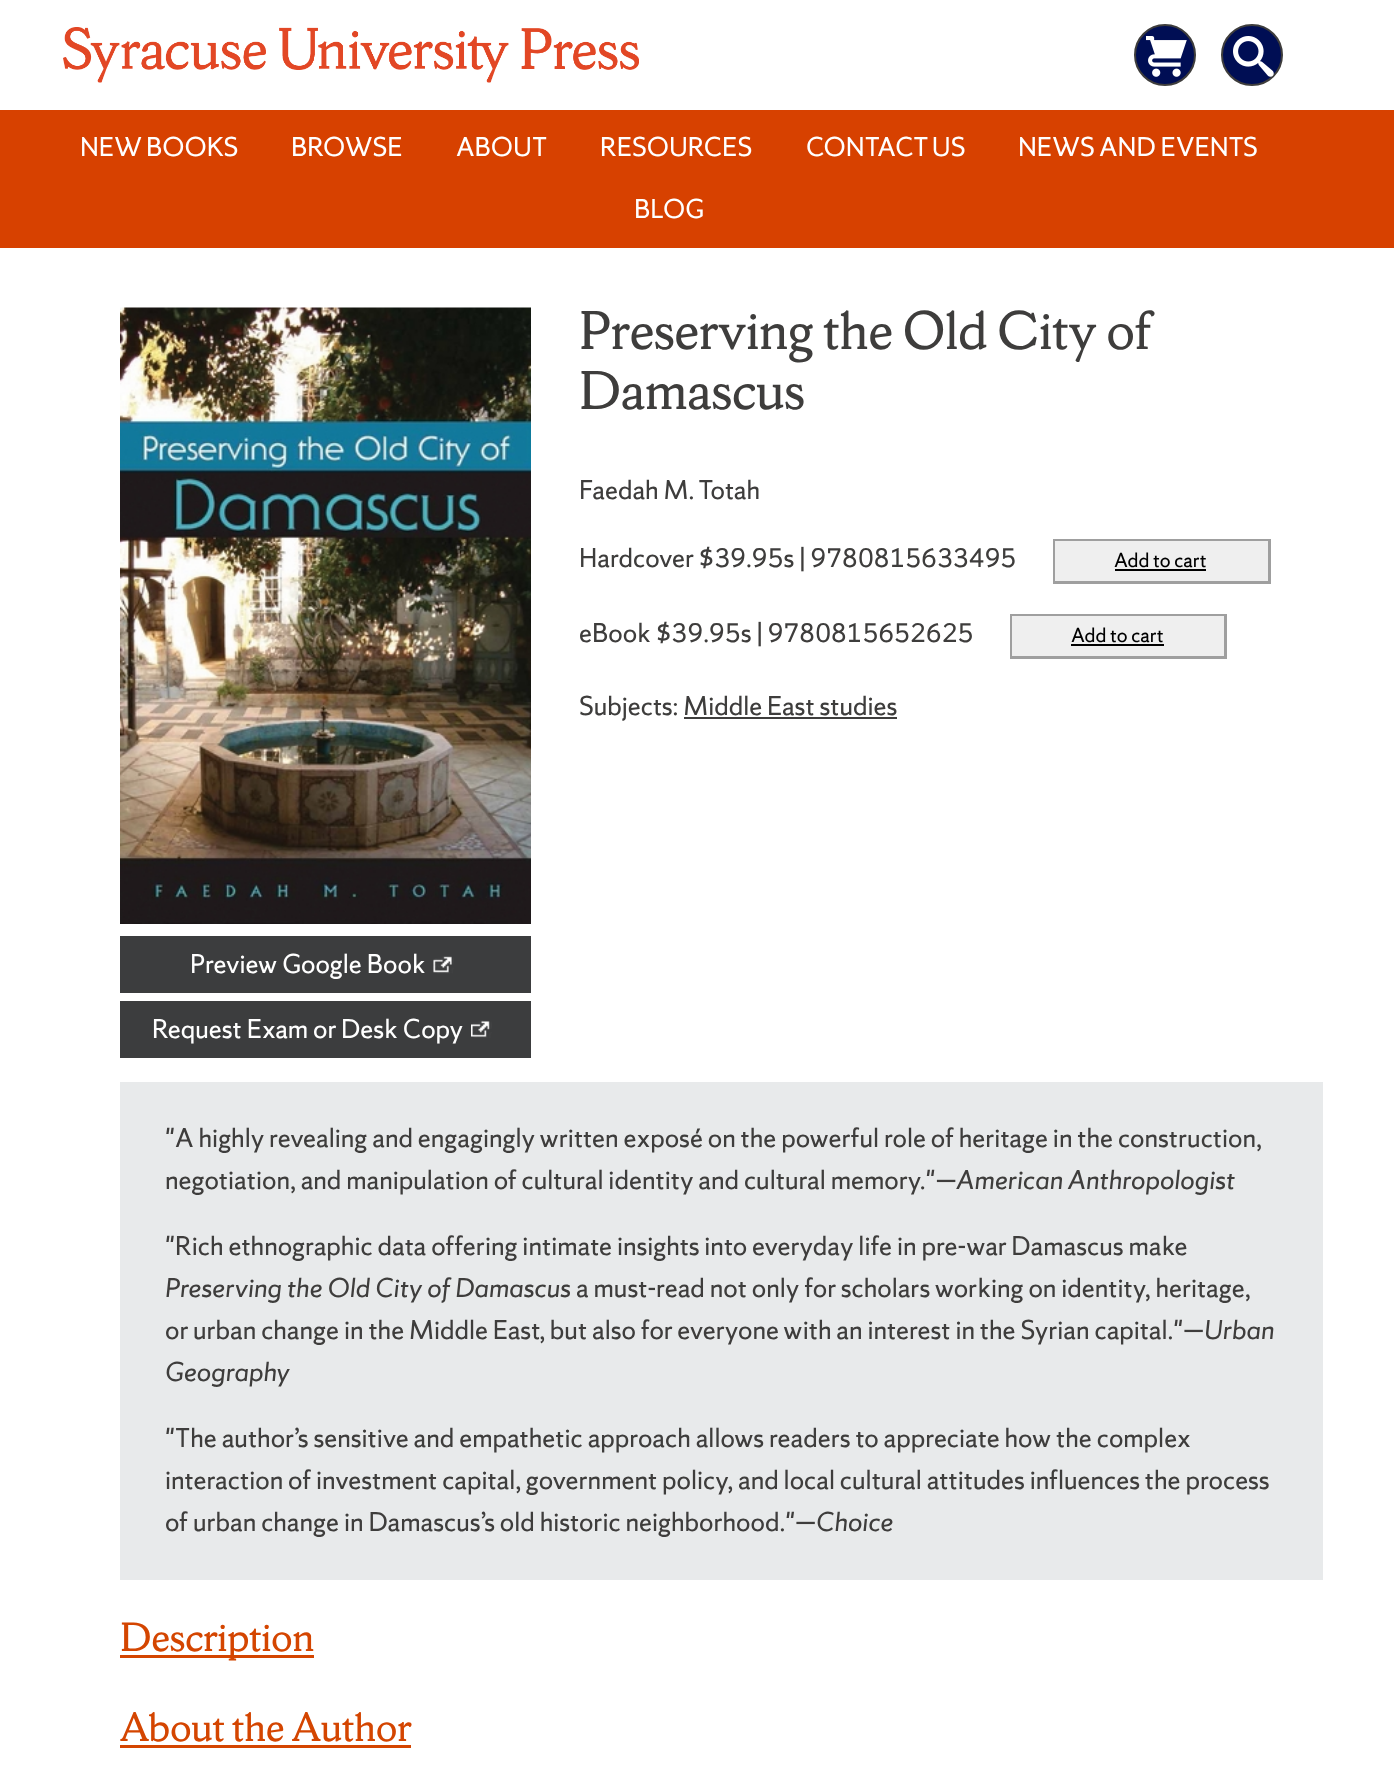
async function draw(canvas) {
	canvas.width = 1394;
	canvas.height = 1765;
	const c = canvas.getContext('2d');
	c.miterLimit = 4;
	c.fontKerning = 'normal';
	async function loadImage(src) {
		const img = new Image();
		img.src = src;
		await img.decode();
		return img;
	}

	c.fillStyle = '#fff';
	c.fillRect(0, 0, 1394, 1765);
	c.drawImage(await loadImage('img1.png'), 63, 27, 576, 56);
	c.fillStyle = '#000e54';
	c.beginPath();
	c.arc(1165, 55, 30, 0, 2 * Math.PI);
	c.fill();
	c.strokeStyle = '#3e3d3c';
	c.lineWidth = 2;
	c.stroke();
	c.drawImage(await loadImage('img2.png'), 1146, 36, 41, 41);
	c.beginPath();
	c.arc(1252, 55, 30, 0, 2 * Math.PI);
	c.fill();
	c.stroke();
	c.drawImage(await loadImage('img3.png'), 1233, 36, 41, 41);
	c.fillStyle = '#d74100';
	c.fillRect(0, 110, 1394, 138);
	c.font = '24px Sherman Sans';
	c.fillStyle = '#fff';
	for (const [text, x, y] of [
		['NEW BOOKS', 80, 156],
		['BROWSE', 291, 156],
		['ABOUT', 456, 156],
		['RESOURCES', 600, 156],
		['CONTACT US', 806, 156],
		['NEWS AND EVENTS', 1018, 156],
		['BLOG', 634, 218],
	]) {
		c.fillText(text, x, y);
	}
	c.font = '48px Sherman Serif';
	c.fillStyle = '#3e3d3c';
	c.fillText('Preserving the Old City of', 579, 349);
	c.fillText('Damascus', 579, 409);
	c.font = '24px Sherman Sans';
	c.fillText('Faedah M. Totah', 579, 499);
	c.fillText('Hardcover $39.95s | 9780815633495', 579, 567);
	for (const [x, y, w, h, color] of [
		[1055, 541, 213, 40, '#efefef'],
		[1053, 539, 218, 2, '#9f9f9f'],
		[1268, 539, 3, 45, '#9f9f9f'],
		[1053, 581, 218, 3, '#9f9f9f'],
		[1053, 539, 2, 45, '#9f9f9f'],
	]) {
		c.fillStyle = color;
		c.fillRect(x, y, w, h);
	}
	c.font = '18px Sherman Sans';
	c.fillStyle = '#000';
	c.fillText('Add to cart', 1114, 567);
	c.fillRect(1115, 569, 91, 2);
	c.font = '24px Sherman Sans';
	c.fillStyle = '#3e3d3c';
	c.fillText('eBook $39.95s | 9780815652625', 579, 642);
	for (const [x, y, w, h, color] of [
		[1012, 616, 212, 40, '#efefef'],
		[1010, 614, 217, 2, '#9f9f9f'],
		[1224, 614, 3, 45, '#9f9f9f'],
		[1010, 656, 217, 3, '#9f9f9f'],
		[1010, 614, 2, 45, '#9f9f9f'],
	]) {
		c.fillStyle = color;
		c.fillRect(x, y, w, h);
	}
	c.font = '18px Sherman Sans';
	c.fillStyle = '#000';
	c.fillText('Add to cart', 1071, 642);
	c.fillRect(1071, 644, 93, 2);
	c.font = '24px Sherman Sans';
	c.fillStyle = '#3e3d3c';
	c.fillText('Subjects: Middle East studies', 579, 715);
	c.fillRect(684, 717, 213, 2);
	c.drawImage(await loadImage('img4.png'), 120, 307, 411, 617);
	c.fillStyle = '#3c3d3e';
	c.fillRect(120, 936, 411, 57);
	c.fillStyle = '#fff';
	c.fillText('Preview Google Book', 190, 973);
	c.drawImage(await loadImage('img5.png'), 433, 956, 21, 18);
	c.fillStyle = '#3c3d3e';
	c.fillRect(120, 1001, 411, 57);
	c.fillStyle = '#fff';
	c.fillText('Request Exam or Desk Copy', 152, 1038);
	c.drawImage(await loadImage('img6.png'), 471, 1020, 21, 18);
	c.fillStyle = '#e8eaeb';
	c.fillRect(120, 1082, 1203, 498);
	c.fillStyle = '#3e3d3c';
	c.fillText('"A highly revealing and engagingly written exposé on the powerful role of heritage in the construction,', 165, 1147);
	c.fillText('negotiation, and manipulation of cultural identity and cultural memory."—', 165, 1189);
	c.font = 'italic 24px Sherman Sans';
	c.fillText('American Anthropologist', 956, 1189);
	c.font = '24px Sherman Sans';
	c.fillText('"Rich ethnographic data offering intimate insights into everyday life in pre-war Damascus make', 165, 1255);
	c.font = 'italic 24px Sherman Sans';
	c.fillText('Preserving the Old City of Damascus', 165, 1297);
	c.font = '24px Sherman Sans';
	c.fillText('a must-read not only for scholars working on identity, heritage,', 576, 1297);
	c.fillText('or urban change in the Middle East, but also for everyone with an interest in the Syrian capital."—', 165, 1339);
	c.font = 'italic 24px Sherman Sans';
	c.fillText('Urban', 1204, 1339);
	c.fillText('Geography', 165, 1381);
	c.font = '24px Sherman Sans';
	for (const [text, x, y] of [
		['"The author’s sensitive and empathetic approach allows readers to appreciate how the complex', 165, 1447],
		['interaction of investment capital, government policy, and local cultural attitudes influences the process', 165, 1489],
		['of urban change in Damascus’s old historic neighborhood."—', 165, 1531],
	]) {
		c.fillText(text, x, y);
	}
	c.font = 'italic 24px Sherman Sans';
	c.fillText('Choice', 816, 1531);
	c.fillStyle = '#d44500';
	c.fillRect(120, 1655, 194, 3);
	c.font = '36px Sherman Serif';
	c.fillText('Description', 120, 1651);
	c.fillText('About the Author', 120, 1741);
	c.fillRect(120, 1745, 291, 3);
}

draw(document.querySelector('canvas'));
